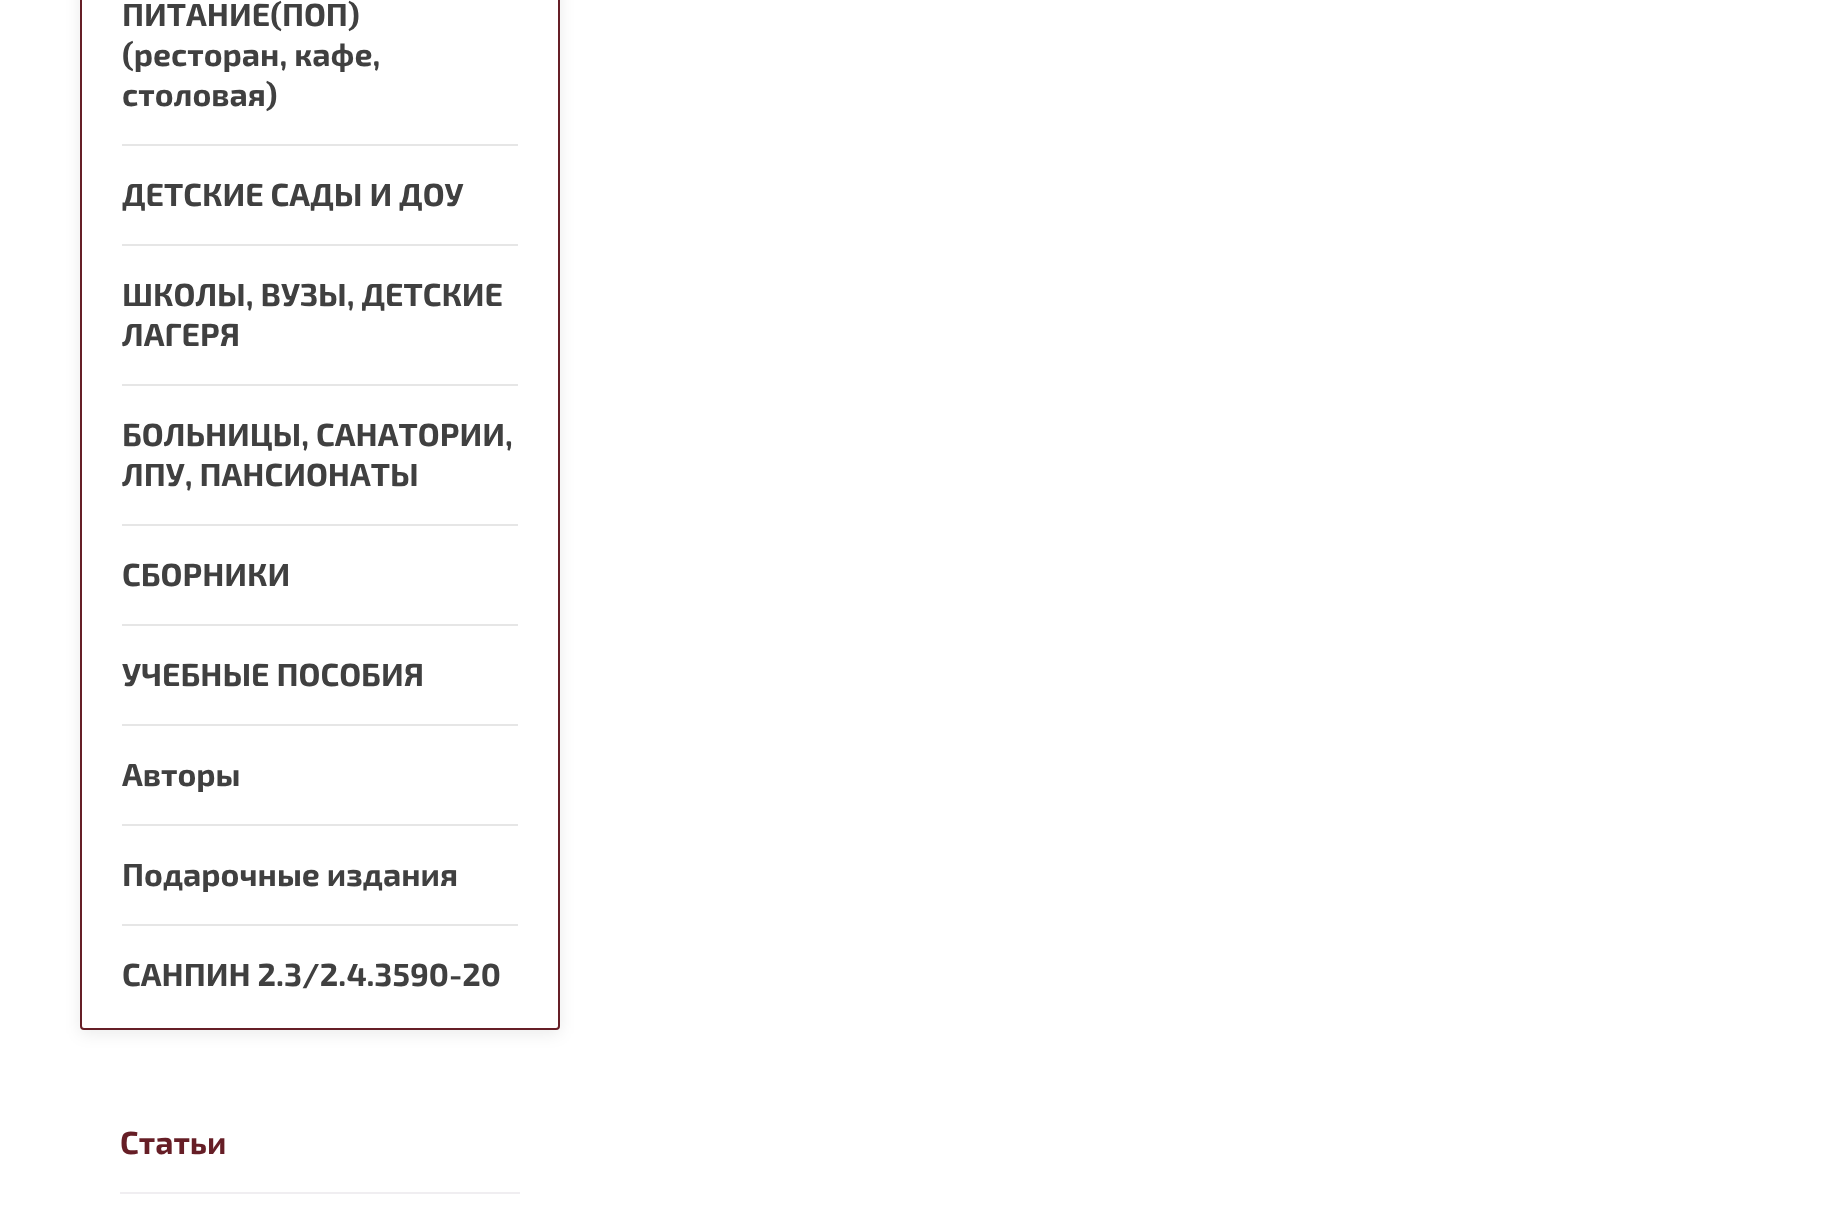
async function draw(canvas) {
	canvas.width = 1839;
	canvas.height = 1226;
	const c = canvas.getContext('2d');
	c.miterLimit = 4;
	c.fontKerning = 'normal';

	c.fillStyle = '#fff';
	c.fillRect(0, 0, 1839, 1226);
	c.fillStyle = '#00000014';
	c.filter = 'blur(8px)';
	c.beginPath();
	c.roundRect(80, -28, 480, 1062, 4);
	c.fill();
	c.filter = 'none';
	c.fillStyle = '#fff';
	c.beginPath();
	c.roundRect(81, -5, 478, 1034, 3);
	c.fill();
	c.strokeStyle = '#661e26';
	c.lineWidth = 2;
	c.stroke();
	c.fillStyle = '#e6e6e6';
	c.fillRect(122, 144, 396, 2);
	c.font = 'bold 32px "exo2"';
	c.fillStyle = '#404040';
	for (const [text, x, y] of [
		['ПИТАНИЕ(ПОП)', 122, 26],
		['(ресторан, кафе,', 122, 66],
		['столовая)', 122, 106],
	]) {
		c.fillText(text, x, y);
	}
	c.fillStyle = '#e6e6e6';
	c.fillRect(122, 244, 396, 2);
	c.fillStyle = '#404040';
	c.fillText('ДЕТСКИЕ САДЫ И ДОУ', 122, 206);
	c.fillStyle = '#e6e6e6';
	c.fillRect(122, 384, 396, 2);
	c.fillStyle = '#404040';
	c.fillText('ШКОЛЫ, ВУЗЫ, ДЕТСКИЕ', 122, 306);
	c.fillText('ЛАГЕРЯ', 122, 346);
	c.fillStyle = '#e6e6e6';
	c.fillRect(122, 524, 396, 2);
	c.fillStyle = '#404040';
	c.fillText('БОЛЬНИЦЫ, САНАТОРИИ,', 122, 446);
	c.fillText('ЛПУ, ПАНСИОНАТЫ', 122, 486);
	c.fillStyle = '#e6e6e6';
	c.fillRect(122, 624, 396, 2);
	c.fillStyle = '#404040';
	c.fillText('СБОРНИКИ', 122, 586);
	c.fillStyle = '#e6e6e6';
	c.fillRect(122, 724, 396, 2);
	c.fillStyle = '#404040';
	c.fillText('УЧЕБНЫЕ ПОСОБИЯ', 122, 686);
	c.fillStyle = '#e6e6e6';
	c.fillRect(122, 824, 396, 2);
	c.fillStyle = '#404040';
	c.fillText('Авторы', 122, 786);
	c.fillStyle = '#e6e6e6';
	c.fillRect(122, 924, 396, 2);
	c.fillStyle = '#404040';
	c.fillText('Подарочные издания', 122, 886);
	c.fillText('САНПИН 2.3/2.4.3590-20', 122, 986);
	c.fillStyle = '#f0eef1';
	c.fillRect(120, 1192, 400, 2);
	c.fillStyle = '#661e26';
	c.fillText('Статьи', 120, 1154);
}

draw(document.querySelector('canvas'));
